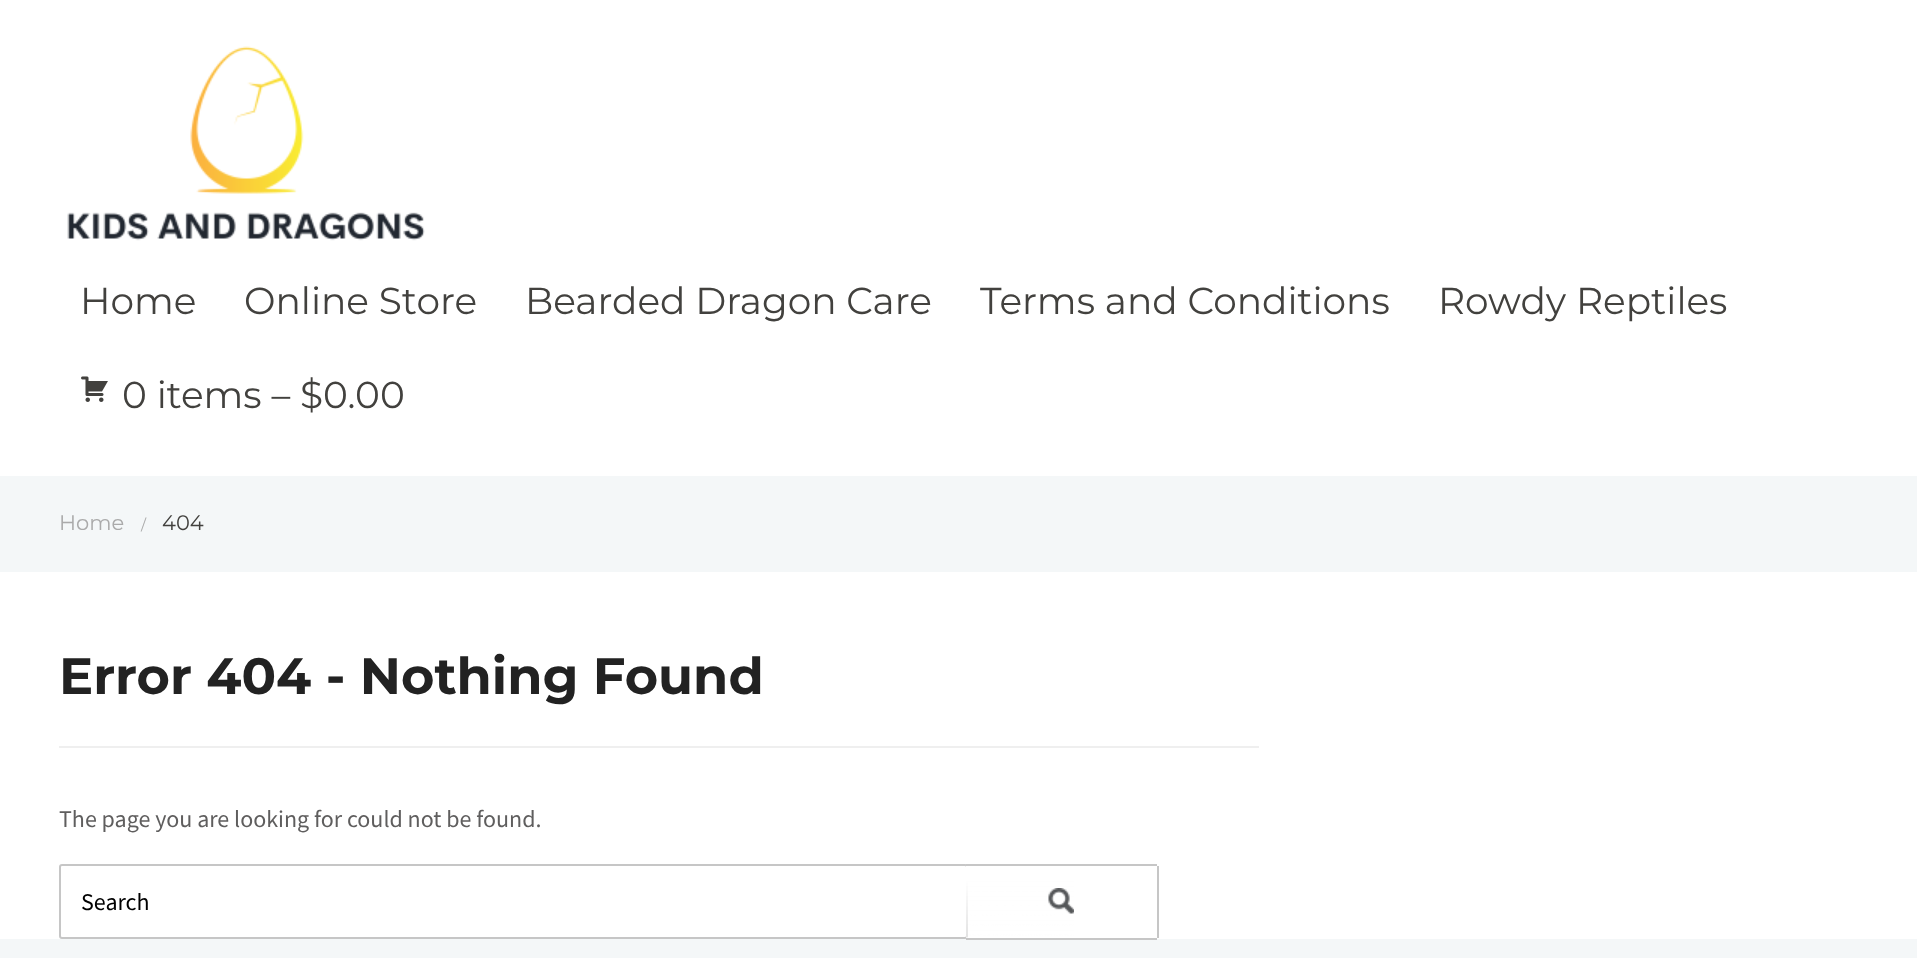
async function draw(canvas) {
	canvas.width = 1917;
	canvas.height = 958;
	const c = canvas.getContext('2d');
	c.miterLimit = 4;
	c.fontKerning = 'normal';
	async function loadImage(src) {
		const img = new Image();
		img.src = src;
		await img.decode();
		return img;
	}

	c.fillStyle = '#fff';
	c.fillRect(0, 0, 1917, 958);
	c.drawImage(await loadImage('img1.png'), 67, 46, 358, 195);
	c.font = '37.5px Montserrat';
	c.fillStyle = '#42413e';
	for (const [text, x, y] of [
		['Home', 80, 314],
		['Online Store', 244, 314],
		['Bearded Dragon Care', 525, 314],
		['Terms and Conditions', 980, 314],
		['Rowdy Reptiles', 1438, 314],
	]) {
		c.fillText(text, x, y);
	}
	c.drawImage(await loadImage('img2.png'), 81, 376, 27, 26);
	c.fillText('0 items – $0.00', 122, 408);
	c.fillStyle = '#f4f7f8';
	c.fillRect(0, 476, 1917, 96);
	c.font = '21px Montserrat';
	c.fillStyle = '#aaa';
	c.fillText('Home', 59, 530);
	c.font = '15px Montserrat';
	c.fillText('/', 141, 530);
	c.font = '21px Montserrat';
	c.fillStyle = '#42413e';
	c.fillText('404', 162, 530);
	c.fillStyle = '#efefef';
	c.fillRect(59, 746, 1200, 2);
	c.font = 'bold 51px Montserrat';
	c.fillStyle = '#222';
	c.fillText('Error 404 - Nothing Found', 59, 694);
	c.font = '24px Source Sans Pro';
	c.fillStyle = '#5f5e5e';
	c.fillText('The page you are looking for could not be found.', 59, 827);
	c.beginPath();
	c.roundRect(60, 865, 907, 73, 2);
	c.strokeStyle = '#c6c6c6';
	c.lineWidth = 2;
	c.stroke();
	c.fillStyle = '#000';
	c.fillText('Search', 81, 910);
	c.drawImage(await loadImage('img3.png'), 966, 866, 108, 72);
	for (const [x, y, w, h, color] of [
		[966, 864, 191, 2, '#c6c6c6'],
		[1157, 866, 2, 72, '#c6c6c6'],
		[0, 939, 1917, 19, '#f4f7f8'],
		[966, 938, 191, 2, '#c6c6c6'],
	]) {
		c.fillStyle = color;
		c.fillRect(x, y, w, h);
	}
}

draw(document.querySelector('canvas'));
